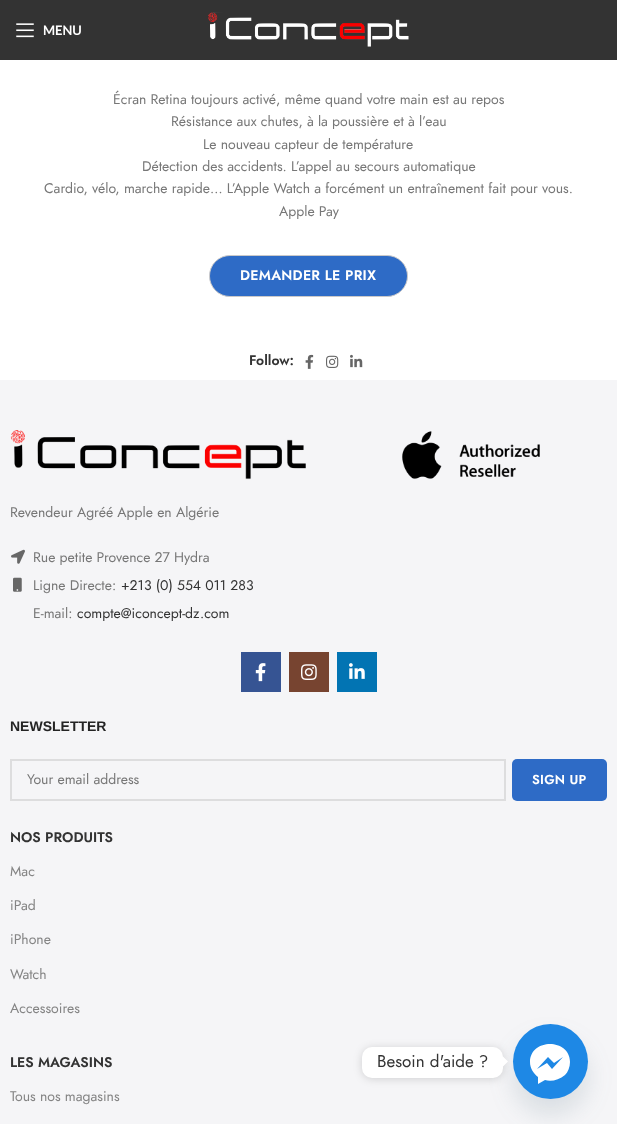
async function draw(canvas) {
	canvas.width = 617;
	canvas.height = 1124;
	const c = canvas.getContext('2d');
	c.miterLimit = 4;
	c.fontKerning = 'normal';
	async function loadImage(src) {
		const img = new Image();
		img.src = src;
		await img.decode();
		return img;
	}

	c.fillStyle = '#fff';
	c.fillRect(0, 0, 617, 1124);
	c.fillStyle = '#333';
	c.fillRect(0, 0, 617, 60);
	c.drawImage(await loadImage('img1.png'), 16, 23, 18, 15);
	c.font = 'bold 13px Lato';
	c.fillStyle = '#fff';
	c.fillText('MENU', 43, 35);
	c.drawImage(await loadImage('img2.png'), 208, 12, 201, 35);
	c.font = '14px Jost';
	c.fillStyle = '#777';
	for (const [text, x, y] of [
		['Écran Retina toujours activé, même quand votre main est au repos', 113, 104],
		['Résistance aux chutes, à la poussière et à l’eau', 171, 126],
		['Le nouveau capteur de température', 203, 149],
		['Détection des accidents. L’appel au secours automatique', 142, 171],
		['Cardio, vélo, marche rapide… L’Apple Watch a forcément un entraînement fait pour vous.', 44, 193],
		['Apple Pay', 279, 216],
	]) {
		c.fillText(text, x, y);
	}
	c.fillStyle = '#2e6bc6';
	c.beginPath();
	c.roundRect(209.5, 255.5, 198, 41, 20.5);
	c.fill();
	c.strokeStyle = '#cac9c9';
	c.stroke();
	c.letterSpacing = '0.25px';
	c.font = '600 14px Jost';
	c.fillStyle = '#fff';
	c.fillText('DEMANDER LE PRIX', 240, 280);
	c.letterSpacing = '0px';
	c.fillStyle = '#333';
	c.fillText('Follow:', 249, 365);
	c.drawImage(await loadImage('img3.png'), 305, 354, 9, 15);
	c.drawImage(await loadImage('img4.png'), 326, 355, 13, 13);
	c.drawImage(await loadImage('img5.png'), 350, 354, 13, 14);
	c.fillStyle = '#f5f5f7';
	c.fillRect(0, 380, 617, 744);
	c.drawImage(await loadImage('img6.png'), 10, 430, 530, 50);
	c.font = '14px Jost';
	c.fillStyle = '#777';
	c.fillText('Revendeur Agréé Apple en Algérie', 10, 517);
	c.drawImage(await loadImage('img7.png'), 11, 549, 14, 15);
	c.fillText('Rue petite Provence 27 Hydra', 33, 562);
	c.drawImage(await loadImage('img8.png'), 13, 577, 9, 15);
	c.fillText('Ligne Directe:', 33, 590);
	c.fillStyle = '#333';
	c.fillText('+213 (0) 554 011 283', 121, 590);
	c.fillStyle = '#777';
	c.fillText('E-mail:', 33, 618);
	c.fillStyle = '#333';
	c.fillText('compte@iconcept-dz.com', 77, 618);
	c.fillStyle = '#365493';
	c.fillRect(241, 652, 40, 40);
	c.drawImage(await loadImage('img9.png'), 255, 663, 11, 19);
	c.fillStyle = '#774430';
	c.fillRect(289, 652, 40, 40);
	c.drawImage(await loadImage('img10.png'), 301, 664, 16, 16);
	c.fillStyle = '#0274b3';
	c.fillRect(337, 652, 40, 40);
	c.drawImage(await loadImage('img11.png'), 349, 663, 16, 16);
	c.font = 'bold 14px Liberation Sans';
	c.fillStyle = '#242424';
	c.fillText('NEWSLETTER', 10, 731);
	c.strokeStyle = '#ddddde';
	c.lineWidth = 2;
	c.strokeRect(11, 760, 494, 40);
	c.font = '14px Jost';
	c.fillStyle = '#777';
	c.fillText('Your email address', 27, 784);
	c.fillStyle = '#2e6bc6';
	c.beginPath();
	c.roundRect(512, 759, 95, 42, 5);
	c.fill();
	c.letterSpacing = '0.25px';
	c.font = '600 13px Jost';
	c.fillStyle = '#fff';
	c.fillText('SIGN UP', 532, 784);
	c.letterSpacing = '0px';
	c.font = '600 14px Jost';
	c.fillStyle = '#333';
	c.fillText('NOS PRODUITS', 10, 842);
	c.font = '14px Jost';
	c.fillStyle = '#848484';
	for (const [text, x, y] of [
		['Mac', 10, 876],
		['iPad', 10, 910],
		['iPhone', 10, 944],
		['Watch', 10, 979],
		['Accessoires', 10, 1013],
	]) {
		c.fillText(text, x, y);
	}
	c.font = '600 14px Jost';
	c.fillStyle = '#333';
	c.fillText('LES MAGASINS', 10, 1067);
	c.font = '14px Jost';
	c.fillStyle = '#848484';
	c.fillText('Tous nos magasins', 10, 1101);
	c.fillStyle = '#49687e29';
	c.filter = 'blur(12px)';
	c.beginPath();
	c.roundRect(513, 1040, 75, 75, 37.5);
	c.fill();
	c.filter = 'none';
	c.fillStyle = '#1e88e5';
	c.beginPath();
	c.arc(550.5, 1061.5, 37.5, 0, 2 * Math.PI);
	c.fill();
	c.fillStyle = '#00000026';
	c.filter = 'blur(4px)';
	c.beginPath();
	c.roundRect(362, 1048, 141, 31, 10);
	c.fill();
	c.filter = 'none';
	c.fillStyle = '#fff';
	c.beginPath();
	c.roundRect(362, 1047, 141, 31, 10);
	c.fill();
	c.font = '17px Jost';
	c.fillStyle = '#333';
	c.fillText('Besoin d\'aide ?', 377, 1067);
	c.fillStyle = '#fff';
	c.beginPath();
	c.moveTo(503, 1066.5);
	c.lineTo(503, 1056.5);
	c.lineTo(508, 1061.5);
	c.closePath();
	c.fill();
	c.beginPath();
	c.moveTo(530, 1062);
	c.bezierCurveTo(530, 1038, 570, 1038, 570, 1062);
	c.bezierCurveTo(570, 1067, 568, 1072, 565, 1075);
	c.bezierCurveTo(559, 1080, 551, 1082, 545, 1080);
	c.lineTo(538, 1084);
	c.lineTo(538, 1077);
	c.bezierCurveTo(533, 1073, 530, 1068, 530, 1062);
	c.closePath();
	c.moveTo(547, 1063);
	c.lineTo(552, 1069);
	c.lineTo(563, 1057);
	c.lineTo(554, 1063);
	c.lineTo(548, 1057);
	c.lineTo(537, 1069);
	c.closePath();
	c.fill('evenodd');
}

draw(document.querySelector('canvas'));
